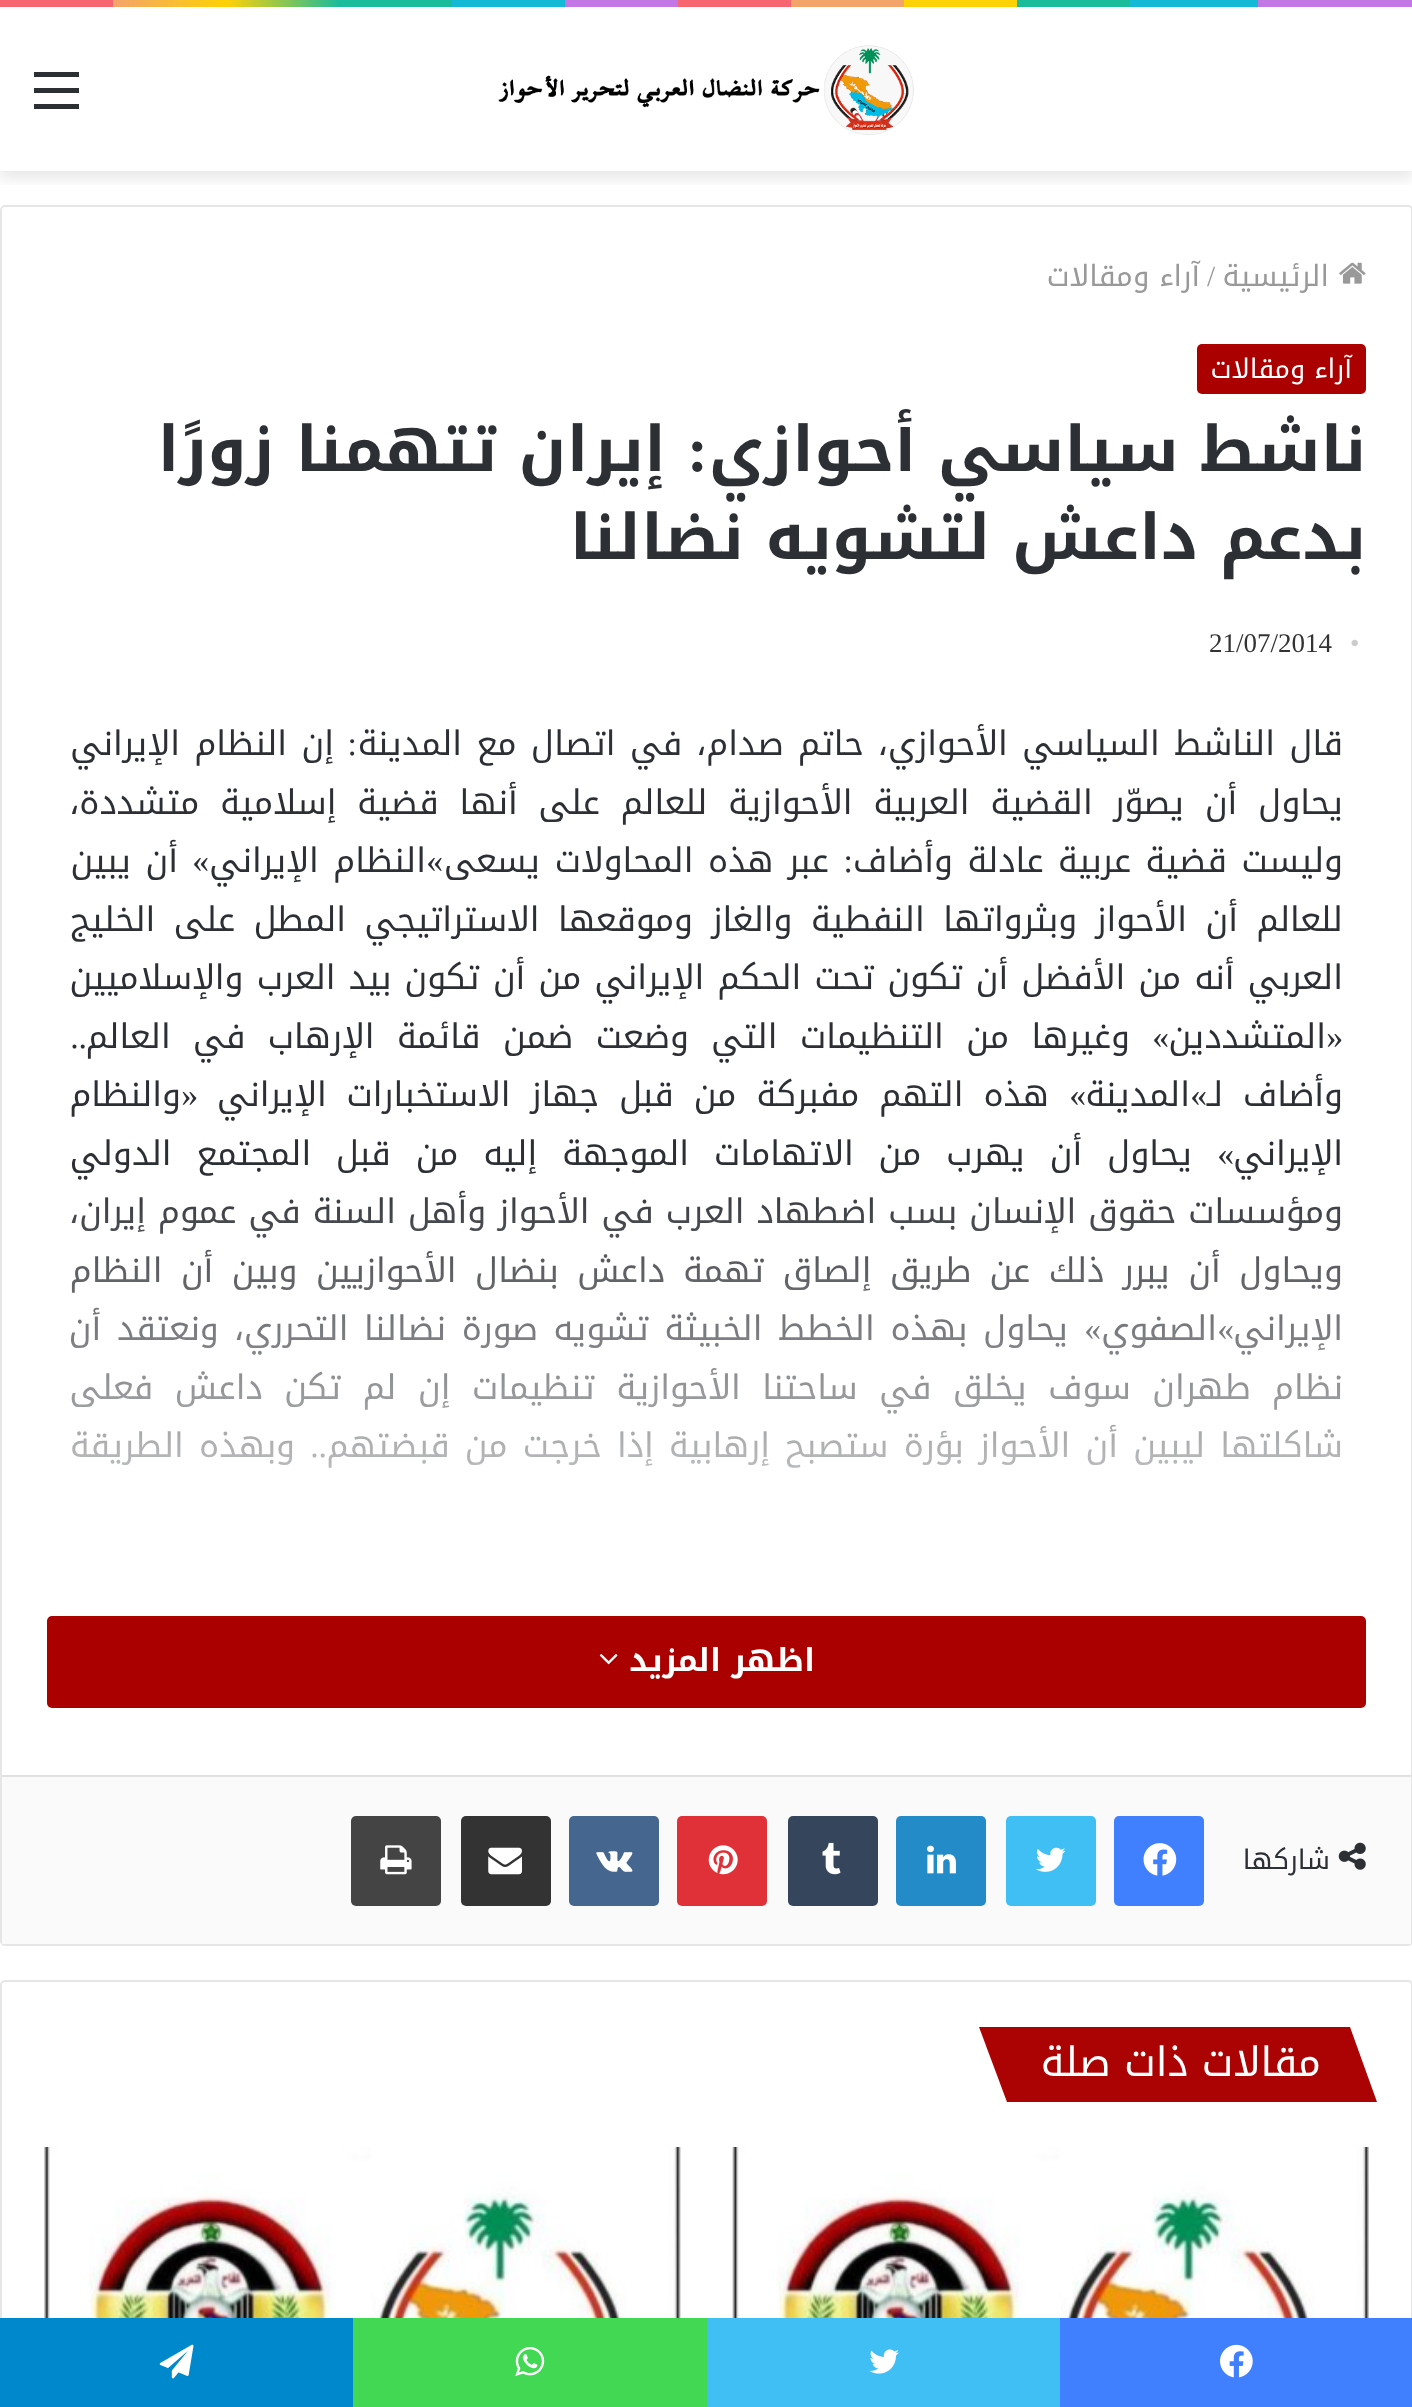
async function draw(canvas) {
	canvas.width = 1412;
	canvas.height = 2407;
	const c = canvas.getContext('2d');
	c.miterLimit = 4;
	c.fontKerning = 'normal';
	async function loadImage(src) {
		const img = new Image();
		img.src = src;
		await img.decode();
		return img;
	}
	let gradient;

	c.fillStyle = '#fff';
	c.fillRect(0, 0, 1412, 2407);
	gradient = c.createLinearGradient(0, 3.4, 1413, 3.4);
	gradient.addColorStop(0, '#f76570');
	gradient.addColorStop(0.08, '#f76570');
	gradient.addColorStop(0.08, '#f3a46b');
	gradient.addColorStop(0.16, '#ffd205');
	gradient.addColorStop(0.24, '#1bbc9b');
	gradient.addColorStop(0.32, '#1bbc9b');
	gradient.addColorStop(0.32, '#14b9d5');
	gradient.addColorStop(0.4, '#14b9d5');
	gradient.addColorStop(0.4, '#c377e4');
	gradient.addColorStop(0.48, '#c377e4');
	gradient.addColorStop(0.48, '#f76570');
	gradient.addColorStop(0.56, '#f76570');
	gradient.addColorStop(0.56, '#f3a46b');
	gradient.addColorStop(0.64, '#f3a46b');
	gradient.addColorStop(0.64, '#ffd205');
	gradient.addColorStop(0.72, '#ffd205');
	gradient.addColorStop(0.72, '#1bbc9b');
	gradient.addColorStop(0.8, '#1bbc9b');
	gradient.addColorStop(0.8, '#14b9d5');
	gradient.addColorStop(0.89, '#14b9d5');
	gradient.addColorStop(0.89, '#c377e4');
	gradient.addColorStop(1, '#c377e4');
	c.fillStyle = gradient;
	c.fillRect(0, 0, 1412, 7);
	c.save();
	c.beginPath();
	c.rect(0, 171, 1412, 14);
	c.clip();
	c.fillStyle = '#0000001a';
	c.filter = 'blur(8px)';
	c.beginPath();
	c.rect(0, 14, 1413, 164);
	c.fill();
	c.filter = 'none';
	c.restore();
	c.drawImage(await loadImage('img1.png'), 498, 45, 416, 90);
	for (const [x, y, w, h, color] of [
		[34, 88, 45, 5, '#2c2f34'],
		[34, 72, 45, 5, '#2c2f34'],
		[34, 104, 45, 5, '#2c2f34'],
	]) {
		c.fillStyle = color;
		c.fillRect(x, y, w, h);
	}
	c.beginPath();
	c.roundRect(1, 206, 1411, 1739, 4);
	c.strokeStyle = '#e6e6e6';
	c.lineWidth = 2;
	c.stroke();
	c.drawImage(await loadImage('img2.png'), 1339, 262, 27, 22);
	c.direction = 'rtl';
	c.font = '29.25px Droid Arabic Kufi';
	c.fillStyle = '#999';
	c.fillText('الرئيسية', 1329, 286);
	c.direction = 'ltr';
	c.font = '29.25px Liberation Serif';
	c.fillText('/', 1207, 286);
	c.direction = 'rtl';
	c.font = '29.25px Droid Arabic Kufi';
	c.fillText('آراء ومقالات', 1200, 286);
	c.fillStyle = '#a00';
	c.beginPath();
	c.roundRect(1197, 344, 169, 50, 5);
	c.fill();
	c.font = '27px Droid Arabic Kufi';
	c.fillStyle = '#fff';
	c.fillText('آراء ومقالات', 1352, 378);
	c.font = 'bold 63px Droid Arabic Kufi';
	c.fillStyle = '#2c2f34';
	c.fillText('ناشط سياسي أحوازي', 1366, 471);
	c.font = 'bold 63px Liberation Serif';
	c.fillText(':', 708, 471);
	c.font = 'bold 63px Droid Arabic Kufi';
	c.fillText('إيران تتهمنا زورًا', 666, 471);
	c.fillText('بدعم داعش لتشويه نضالنا', 1366, 559);
	c.direction = 'ltr';
	c.font = '27px Liberation Serif';
	c.fillStyle = '#ccc';
	c.fillText('•', 1350, 652);
	c.fillStyle = '#333';
	c.fillText('21/07/2014', 1209, 652);
	c.wordSpacing = '3px';
	c.direction = 'rtl';
	c.font = '33.75px Droid Arabic Kufi';
	c.fillStyle = '#2c2f34';
	c.fillText('قال الناشط السياسي الأحوازي، حاتم صدام، في اتصال مع المدينة', 1343, 755);
	c.wordSpacing = '0px';
	c.font = '33.75px Liberation Serif';
	c.fillText(':', 357, 755);
	c.wordSpacing = '3px';
	c.font = '33.75px Droid Arabic Kufi';
	c.fillText('إن النظام الإيراني', 334, 755);
	c.wordSpacing = '9.4px';
	c.fillText('يحاول أن يصوّر القضية العربية الأحوازية للعالم على أنها قضية إسلامية متشددة،', 1343, 814);
	c.wordSpacing = '3px';
	c.fillText('وليست قضية عربية عادلة وأضاف', 1343, 872);
	c.wordSpacing = '0px';
	c.font = '33.75px Liberation Serif';
	c.fillText(':', 853, 872);
	c.wordSpacing = '3px';
	c.font = '33.75px Droid Arabic Kufi';
	c.fillText('عبر هذه المحاولات يسعى', 829, 872);
	c.wordSpacing = '0px';
	c.font = '33.75px Liberation Serif';
	c.fillText('»', 443, 872);
	c.wordSpacing = '3px';
	c.font = '33.75px Droid Arabic Kufi';
	c.fillText('النظام الإيراني', 426, 872);
	c.wordSpacing = '0px';
	c.font = '33.75px Liberation Serif';
	c.fillText('»', 209, 872);
	c.wordSpacing = '3px';
	c.font = '33.75px Droid Arabic Kufi';
	c.fillText('أن يبين', 178, 872);
	c.wordSpacing = '7px';
	c.fillText('للعالم أن الأحواز وبثرواتها النفطية والغاز وموقعها الاستراتيجي المطل على الخليج', 1343, 931);
	c.wordSpacing = '1.75px';
	c.fillText('العربي أنه من الأفضل أن تكون تحت الحكم الإيراني من أن تكون بيد العرب والإسلاميين', 1343, 989);
	c.wordSpacing = '0px';
	c.font = '33.75px Liberation Serif';
	c.fillText('«', 1343, 1048);
	c.font = '33.75px Droid Arabic Kufi';
	c.fillText('المتشددين', 1326, 1048);
	c.font = '33.75px Liberation Serif';
	c.fillText('»', 1169, 1048);
	c.wordSpacing = '11px';
	c.font = '33.75px Droid Arabic Kufi';
	c.fillText('وغيرها من التنظيمات التي وضعت ضمن قائمة الإرهاب في العالم', 1130, 1048);
	c.wordSpacing = '0px';
	c.font = '33.75px Liberation Serif';
	c.fillText('..', 87, 1048);
	c.wordSpacing = '8.5px';
	c.font = '33.75px Droid Arabic Kufi';
	c.fillText('وأضاف لـ', 1343, 1106);
	c.wordSpacing = '0px';
	c.font = '33.75px Liberation Serif';
	c.fillText('»', 1207, 1106);
	c.font = '33.75px Droid Arabic Kufi';
	c.fillText('المدينة', 1190, 1106);
	c.font = '33.75px Liberation Serif';
	c.fillText('»', 1086, 1106);
	c.wordSpacing = '8.5px';
	c.font = '33.75px Droid Arabic Kufi';
	c.fillText('هذه التهم مفبركة من قبل جهاز الاستخبارات الإيراني', 1049, 1106);
	c.wordSpacing = '0px';
	c.font = '33.75px Liberation Serif';
	c.fillText('«', 198, 1106);
	c.font = '33.75px Droid Arabic Kufi';
	c.fillText('والنظام', 181, 1106);
	c.fillText('الإيراني', 1343, 1165);
	c.font = '33.75px Liberation Serif';
	c.fillText('»', 1234, 1165);
	c.wordSpacing = '13.5px';
	c.font = '33.75px Droid Arabic Kufi';
	c.fillText('يحاول أن يهرب من الاتهامات الموجهة إليه من قبل المجتمع الدولي', 1192, 1165);
	c.wordSpacing = '0.5px';
	c.fillText('ومؤسسات حقوق الإنسان بسب اضطهاد العرب في الأحواز وأهل السنة في عموم إيران،', 1343, 1223);
	c.wordSpacing = '7px';
	c.fillText('ويحاول أن يبرر ذلك عن طريق إلصاق تهمة داعش بنضال الأحوازيين وبين أن النظام', 1343, 1282);
	c.wordSpacing = '0px';
	c.fillText('الإيراني', 1343, 1340);
	c.font = '33.75px Liberation Serif';
	c.fillText('»', 1234, 1340);
	c.font = '33.75px Droid Arabic Kufi';
	c.fillText('الصفوي', 1217, 1340);
	c.font = '33.75px Liberation Serif';
	c.fillText('»', 1101, 1340);
	c.wordSpacing = '4.25px';
	c.font = '33.75px Droid Arabic Kufi';
	c.fillText('يحاول بهذه الخطط الخبيثة تشويه صورة نضالنا التحرري، ونعتقد أن', 1068, 1340);
	c.wordSpacing = '10.1px';
	c.fillText('نظام طهران سوف يخلق في ساحتنا الأحوازية تنظيمات إن لم تكن داعش فعلى', 1343, 1399);
	c.wordSpacing = '3.75px';
	c.fillText('شاكلتها ليبين أن الأحواز بؤرة ستصبح إرهابية إذا خرجت من قبضتهم', 1343, 1457);
	c.wordSpacing = '0px';
	c.font = '33.75px Liberation Serif';
	c.fillText('..', 327, 1457);
	c.wordSpacing = '3.75px';
	c.font = '33.75px Droid Arabic Kufi';
	c.fillText('وبهذه الطريقة', 295, 1457);
	gradient = c.createLinearGradient(707, 716, 707, 1616);
	gradient.addColorStop(0.5, '#ffffff00');
	gradient.addColorStop(1, '#fff');
	c.fillStyle = gradient;
	c.fillRect(71, 1176, 1269, 292);
	c.fillStyle = '#a00';
	c.beginPath();
	c.roundRect(47, 1616, 1319, 92, 5);
	c.fill();
	c.wordSpacing = '0px';
	c.font = 'bold 31.5px Droid Arabic Kufi';
	c.fillStyle = '#fff';
	c.fillText('اظهر المزيد', 815, 1671);
	c.drawImage(await loadImage('img3.png'), 599, 1654, 19, 11);
	c.fillStyle = '#fafafa';
	c.fillRect(2, 1777, 1409, 167);
	c.fillStyle = '#e1e1e1';
	c.fillRect(2, 1775, 1409, 2);
	c.drawImage(await loadImage('img4.png'), 1338, 1842, 28, 28);
	c.font = '27px Droid Arabic Kufi';
	c.fillStyle = '#2c2f34';
	c.fillText('شاركها', 1330, 1869);
	c.fillStyle = '#4080ff';
	c.beginPath();
	c.roundRect(1114, 1816, 90, 90, 5);
	c.fill();
	c.drawImage(await loadImage('img5.png'), 1143, 1843, 34, 33);
	c.fillStyle = '#40bff5';
	c.beginPath();
	c.roundRect(1006, 1816, 90, 90, 5);
	c.fill();
	c.drawImage(await loadImage('img6.png'), 1036, 1847, 30, 25);
	c.fillStyle = '#238cc8';
	c.beginPath();
	c.roundRect(896, 1816, 90, 90, 5);
	c.fill();
	c.drawImage(await loadImage('img7.png'), 927, 1845, 29, 29);
	c.fillStyle = '#35465c';
	c.beginPath();
	c.roundRect(788, 1816, 90, 90, 5);
	c.fill();
	c.drawImage(await loadImage('img8.png'), 822, 1842, 19, 33);
	c.fillStyle = '#e13138';
	c.beginPath();
	c.roundRect(677, 1816, 90, 90, 5);
	c.fill();
	c.drawImage(await loadImage('img9.png'), 708, 1845, 30, 30);
	c.fillStyle = '#45668e';
	c.beginPath();
	c.roundRect(569, 1816, 90, 90, 5);
	c.fill();
	c.drawImage(await loadImage('img10.png'), 596, 1851, 37, 21);
	c.fillStyle = '#333';
	c.beginPath();
	c.roundRect(461, 1816, 90, 90, 5);
	c.fill();
	c.drawImage(await loadImage('img11.png'), 488, 1847, 34, 28);
	c.fillStyle = '#444';
	c.beginPath();
	c.roundRect(351, 1816, 90, 90, 5);
	c.fill();
	c.drawImage(await loadImage('img12.png'), 380, 1845, 32, 30);
	c.beginPath();
	c.roundRect(1, 1981, 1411, 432, 4);
	c.stroke();
	c.fillStyle = '#ab0303';
	c.beginPath();
	c.moveTo(979, 2027);
	c.lineTo(1350, 2027);
	c.lineTo(1377, 2102);
	c.lineTo(1007, 2102);
	c.closePath();
	c.fill();
	c.font = '40.5px Droid Arabic Kufi';
	c.fillStyle = '#fff';
	c.fillText('مقالات ذات صلة', 1321, 2076);
	c.drawImage(await loadImage('img13.png'), 732, 2147, 637, 171);
	c.drawImage(await loadImage('img14.png'), 44, 2147, 637, 171);
	c.fillStyle = '#4080ff';
	c.fillRect(1060, 2318, 352, 89);
	c.drawImage(await loadImage('img15.png'), 1220, 2344, 33, 34);
	c.fillStyle = '#40bff5';
	c.fillRect(707, 2318, 353, 89);
	c.drawImage(await loadImage('img16.png'), 869, 2349, 30, 25);
	c.fillStyle = '#43d854';
	c.fillRect(353, 2318, 354, 89);
	c.drawImage(await loadImage('img17.png'), 515, 2347, 30, 29);
	c.fillStyle = '#08c';
	c.fillRect(0, 2318, 353, 89);
	c.drawImage(await loadImage('img18.png'), 159, 2344, 35, 35);
}

draw(document.querySelector('canvas'));
